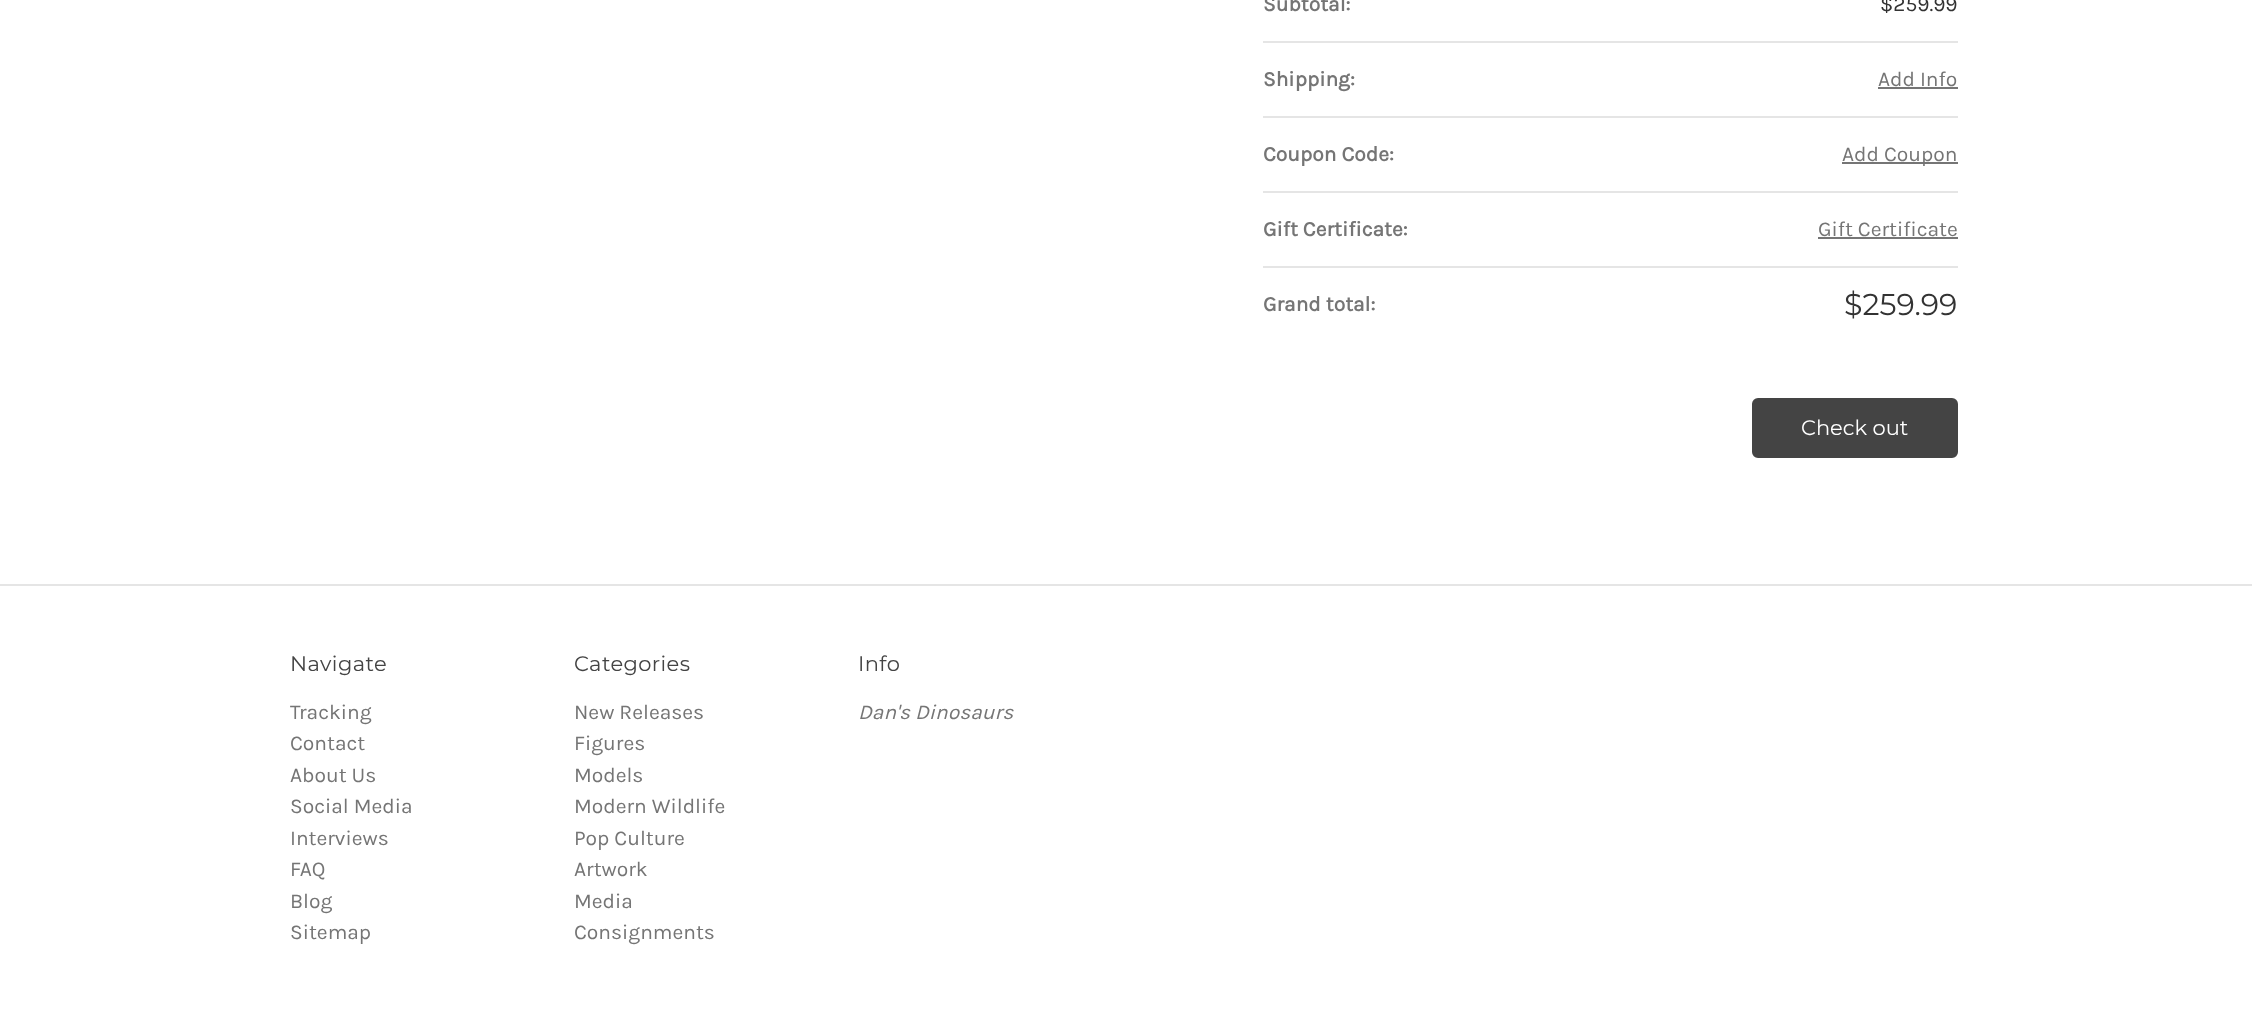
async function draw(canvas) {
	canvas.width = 2252;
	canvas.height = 1011;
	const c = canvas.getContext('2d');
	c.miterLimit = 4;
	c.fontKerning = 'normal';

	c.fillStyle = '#fff';
	c.fillRect(0, 0, 2252, 1011);
	c.font = 'bold 21px Karla';
	c.fillStyle = '#757575';
	c.fillText('Subtotal:', 1263, 11);
	c.font = '21px Karla';
	c.fillStyle = '#333';
	c.fillText('$259.99', 1880, 11);
	c.fillStyle = '#e5e5e5';
	c.fillRect(1263, 41, 695, 2);
	c.font = 'bold 21px Karla';
	c.fillStyle = '#757575';
	c.fillText('Shipping:', 1263, 86);
	c.font = '21px Karla';
	c.fillText('Add Info', 1878, 86);
	c.fillRect(1878, 87, 80, 2);
	c.fillStyle = '#e5e5e5';
	c.fillRect(1263, 116, 695, 2);
	c.font = 'bold 21px Karla';
	c.fillStyle = '#757575';
	c.fillText('Coupon Code:', 1263, 161);
	c.fillRect(1842, 162, 116, 2);
	c.font = '21px Karla';
	c.fillText('Add Coupon', 1842, 161);
	c.fillStyle = '#e5e5e5';
	c.fillRect(1263, 191, 695, 2);
	c.font = 'bold 21px Karla';
	c.fillStyle = '#757575';
	c.fillText('Gift Certificate:', 1263, 236);
	c.font = '21px Karla';
	c.fillText('Gift Certificate', 1818, 236);
	c.fillRect(1818, 237, 140, 2);
	c.fillStyle = '#e5e5e5';
	c.fillRect(1263, 266, 695, 2);
	c.font = 'bold 21px Karla';
	c.fillStyle = '#757575';
	c.fillText('Grand total:', 1263, 311);
	c.font = '30px Montserrat';
	c.fillStyle = '#333';
	c.fillText('$259.99', 1844, 315);
	c.fillStyle = '#444';
	c.beginPath();
	c.roundRect(1753, 399, 204, 58, 5);
	c.fill();
	c.strokeStyle = '#444';
	c.lineWidth = 2;
	c.stroke();
	c.font = '21px Montserrat';
	c.fillStyle = '#fff';
	c.fillText('Check out', 1801, 435);
	c.fillStyle = '#e5e5e5';
	c.fillRect(0, 584, 2252, 2);
	c.letterSpacing = '0.4px';
	c.fillStyle = '#444';
	c.fillText('Navigate', 290, 671);
	c.letterSpacing = '0px';
	c.font = '21px Karla';
	c.fillStyle = '#757575';
	for (const [text, x, y] of [
		['Tracking', 290, 719],
		['Contact', 290, 750],
		['About Us', 290, 782],
		['Social Media', 290, 813],
		['Interviews', 290, 845],
		['FAQ', 290, 876],
		['Blog', 290, 908],
		['Sitemap', 290, 939],
	]) {
		c.fillText(text, x, y);
	}
	c.letterSpacing = '0.4px';
	c.font = '21px Montserrat';
	c.fillStyle = '#444';
	c.fillText('Categories', 574, 671);
	c.letterSpacing = '0px';
	c.font = '21px Karla';
	c.fillStyle = '#757575';
	for (const [text, x, y] of [
		['New Releases', 574, 719],
		['Figures', 574, 750],
		['Models', 574, 782],
		['Modern Wildlife', 574, 813],
		['Pop Culture', 574, 845],
		['Artwork', 574, 876],
		['Media', 574, 908],
		['Consignments', 574, 939],
	]) {
		c.fillText(text, x, y);
	}
	c.letterSpacing = '0.4px';
	c.font = '21px Montserrat';
	c.fillStyle = '#444';
	c.fillText('Info', 858, 671);
	c.letterSpacing = '0px';
	c.font = 'italic 21px Karla';
	c.fillStyle = '#757575';
	c.fillText('Dan\'s Dinosaurs', 858, 719);
}

draw(document.querySelector('canvas'));
